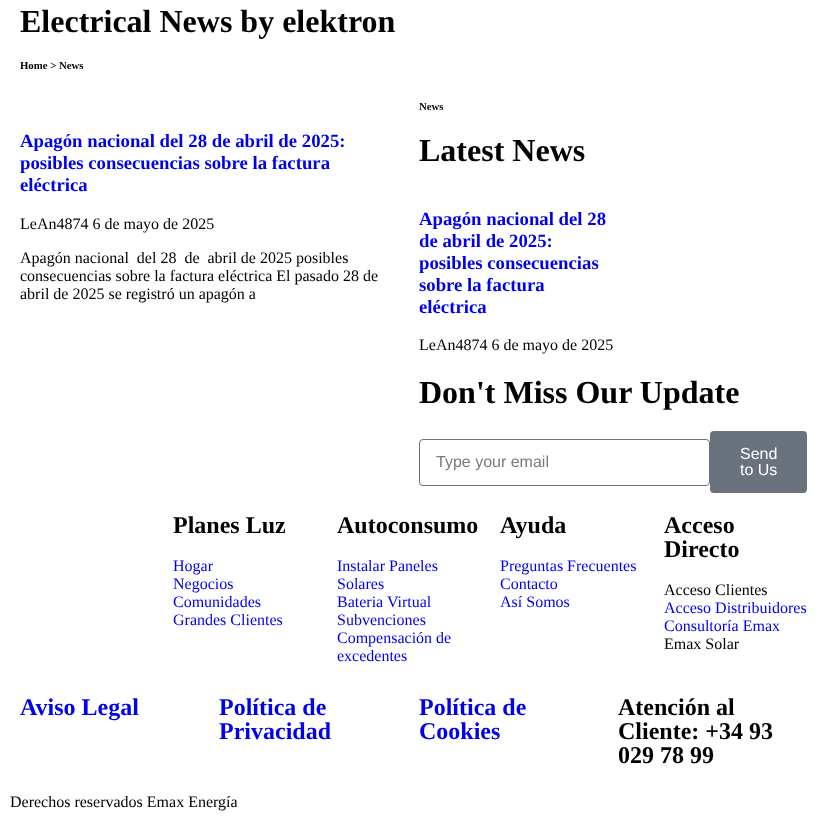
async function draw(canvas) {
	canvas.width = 817;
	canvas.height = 837;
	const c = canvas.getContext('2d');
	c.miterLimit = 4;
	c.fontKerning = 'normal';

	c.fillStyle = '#fff';
	c.fillRect(0, 0, 817, 837);
	c.font = 'bold 32px Liberation Serif';
	c.fillStyle = '#000';
	c.fillText('Electrical News by elektron', 20, 32);
	c.font = 'bold 10.75px Liberation Serif';
	c.fillText('Home > News', 20, 69);
	c.font = 'bold 18.75px Liberation Serif';
	c.fillStyle = '#00e';
	for (const [text, x, y] of [
		['Apagón nacional del 28 de abril de 2025:', 20, 147],
		['posibles consecuencias sobre la factura', 20, 169],
		['eléctrica', 20, 191],
	]) {
		c.fillText(text, x, y);
	}
	c.font = '16px Liberation Serif';
	c.fillStyle = '#000';
	for (const [text, x, y] of [
		['LeAn4874 6 de mayo de 2025', 20, 229],
		['Apagón nacional  del 28  de  abril de 2025 posibles', 20, 263],
		['consecuencias sobre la factura eléctrica El pasado 28 de', 20, 281],
		['abril de 2025 se registró un apagón a', 20, 299],
	]) {
		c.fillText(text, x, y);
	}
	c.font = 'bold 10.75px Liberation Serif';
	c.fillText('News', 419, 110);
	c.font = 'bold 32px Liberation Serif';
	c.fillText('Latest News', 419, 161);
	c.font = 'bold 18.75px Liberation Serif';
	c.fillStyle = '#00e';
	for (const [text, x, y] of [
		['Apagón nacional del 28', 419, 225],
		['de abril de 2025:', 419, 247],
		['posibles consecuencias', 419, 269],
		['sobre la factura', 419, 291],
		['eléctrica', 419, 313],
	]) {
		c.fillText(text, x, y);
	}
	c.font = '16px Liberation Serif';
	c.fillStyle = '#000';
	c.fillText('LeAn4874 6 de mayo de 2025', 419, 350);
	c.font = 'bold 32px Liberation Serif';
	c.fillText('Don\'t Miss Our Update', 419, 403);
	c.beginPath();
	c.roundRect(419.5, 439.5, 290, 46, 3.5);
	c.strokeStyle = '#69727d';
	c.stroke();
	c.font = '16px Liberation Sans';
	c.fillStyle = '#797a7c';
	c.fillText('Type your email', 436, 467);
	c.fillStyle = '#69727d';
	c.beginPath();
	c.roundRect(710, 431, 97, 62, 4);
	c.fill();
	c.fillStyle = '#fff';
	c.fillText('Send', 740, 459);
	c.fillText('to Us', 740, 475);
	c.font = 'bold 24px Liberation Serif';
	c.fillStyle = '#000';
	c.fillText('Planes Luz', 173, 533);
	c.font = '16px Liberation Serif';
	c.fillStyle = '#00e';
	for (const [text, x, y] of [
		['Hogar', 173, 571],
		['Negocios', 173, 589],
		['Comunidades', 173, 607],
		['Grandes Clientes', 173, 625],
	]) {
		c.fillText(text, x, y);
	}
	c.font = 'bold 24px Liberation Serif';
	c.fillStyle = '#000';
	c.fillText('Autoconsumo', 337, 533);
	c.font = '16px Liberation Serif';
	c.fillStyle = '#00e';
	for (const [text, x, y] of [
		['Instalar Paneles', 337, 571],
		['Solares', 337, 589],
		['Bateria Virtual', 337, 607],
		['Subvenciones', 337, 625],
		['Compensación de', 337, 643],
		['excedentes', 337, 661],
	]) {
		c.fillText(text, x, y);
	}
	c.font = 'bold 24px Liberation Serif';
	c.fillStyle = '#000';
	c.fillText('Ayuda', 500, 533);
	c.font = '16px Liberation Serif';
	c.fillStyle = '#00e';
	for (const [text, x, y] of [
		['Preguntas Frecuentes', 500, 571],
		['Contacto', 500, 589],
		['Así Somos', 500, 607],
	]) {
		c.fillText(text, x, y);
	}
	c.font = 'bold 24px Liberation Serif';
	c.fillStyle = '#000';
	c.fillText('Acceso', 664, 533);
	c.fillText('Directo', 664, 557);
	c.font = '16px Liberation Serif';
	c.fillText('Acceso Clientes', 664, 595);
	c.fillStyle = '#00e';
	c.fillText('Acceso Distribuidores', 664, 613);
	c.fillText('Consultoría Emax', 664, 631);
	c.fillStyle = '#000';
	c.fillText('Emax Solar', 664, 649);
	c.font = 'bold 24px Liberation Serif';
	c.fillStyle = '#00e';
	for (const [text, x, y] of [
		['Aviso Legal', 20, 715],
		['Política de', 219, 715],
		['Privacidad', 219, 739],
		['Política de', 419, 715],
		['Cookies', 419, 739],
	]) {
		c.fillText(text, x, y);
	}
	c.fillStyle = '#000';
	for (const [text, x, y] of [
		['Atención al', 618, 715],
		['Cliente: +34 93', 618, 739],
		['029 78 99', 618, 763],
	]) {
		c.fillText(text, x, y);
	}
	c.font = '16px Liberation Serif';
	c.fillText('Derechos reservados Emax Energía', 10, 807);
}

draw(document.querySelector('canvas'));
